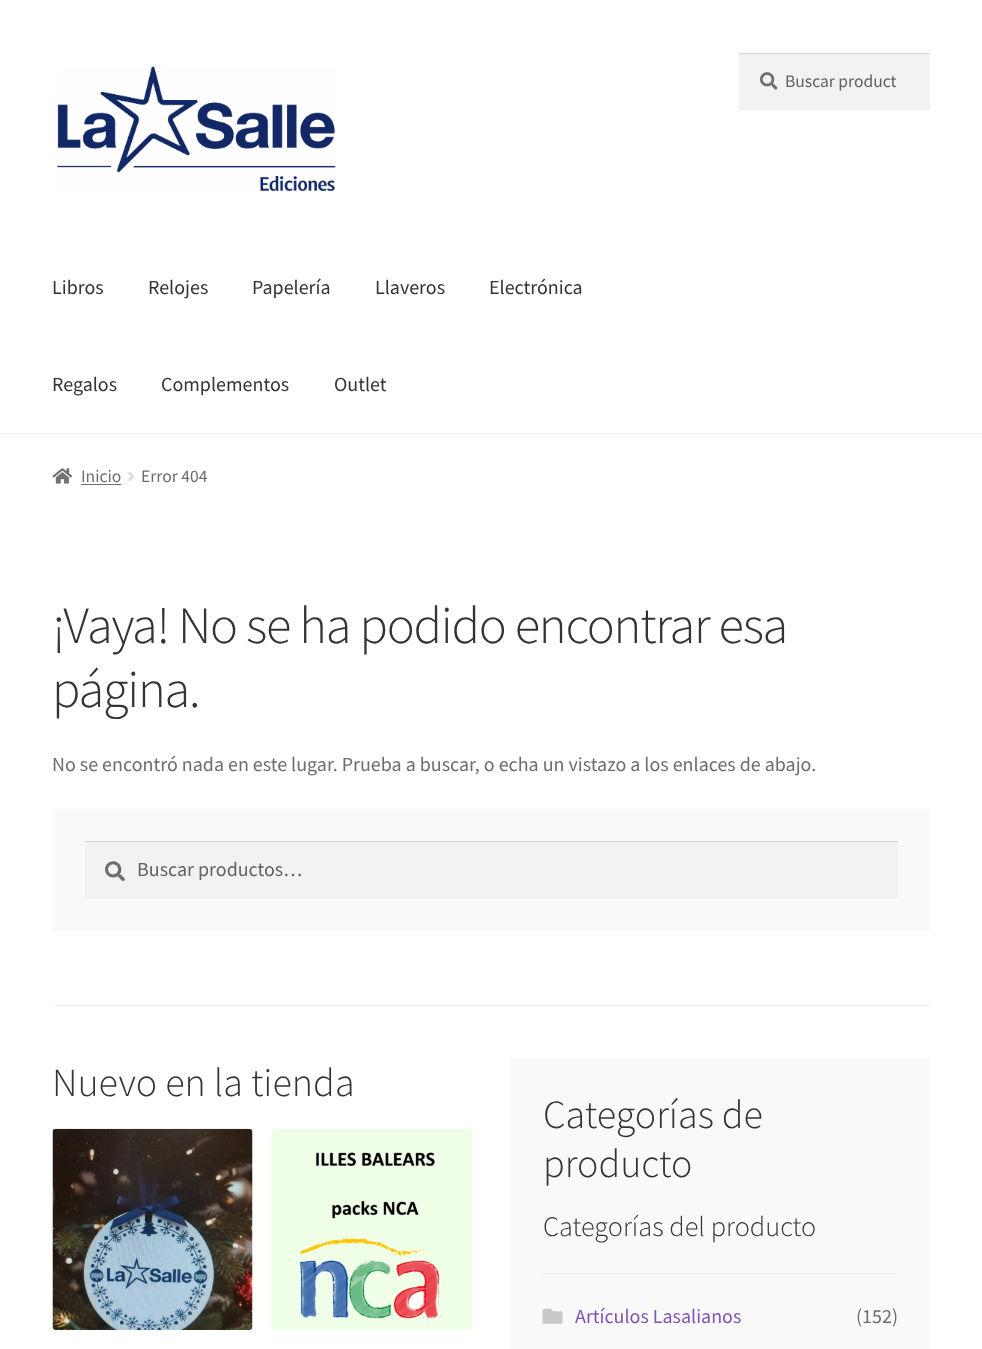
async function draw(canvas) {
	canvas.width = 982;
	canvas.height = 1349;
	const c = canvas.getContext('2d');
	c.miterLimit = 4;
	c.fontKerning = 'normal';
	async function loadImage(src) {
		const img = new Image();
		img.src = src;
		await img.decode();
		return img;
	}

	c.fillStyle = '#fff';
	c.fillRect(0, 0, 982, 1349);
	c.fillStyle = '#f0f0f0';
	c.fillRect(0, 433, 982, 1);
	c.drawImage(await loadImage('img1.png'), 57, 66, 279, 126);
	c.fillStyle = '#f2f2f2';
	c.fillRect(739, 54, 191, 56);
	c.drawImage(await loadImage('img2.png'), 760, 72, 18, 18);
	c.fillStyle = '#d4d4d4';
	c.fillRect(739, 53, 191, 1);
	c.font = '17.5px Source Sans Pro';
	c.fillStyle = '#616161';
	c.fillText('Buscar product', 785, 87);
	c.font = '20px Source Sans Pro';
	c.fillStyle = '#333';
	for (const [text, x, y] of [
		['Libros', 52, 294],
		['Relojes', 148, 294],
		['Papelería', 252, 294],
		['Llaveros', 375, 294],
		['Electrónica', 489, 294],
		['Regalos', 52, 391],
		['Complementos', 161, 391],
		['Outlet', 334, 391],
	]) {
		c.fillText(text, x, y);
	}
	c.drawImage(await loadImage('img3.png'), 52, 468, 21, 16);
	c.font = '17.5px Source Sans Pro';
	c.fillStyle = '#6d6d6d';
	c.fillText('Inicio', 81, 482);
	c.fillStyle = '#727272';
	c.fillRect(81, 484, 40, 1);
	c.drawImage(await loadImage('img4.png'), 128, 472, 7, 10);
	c.fillStyle = '#6d6d6d';
	c.fillText('Error 404', 141, 482);
	c.letterSpacing = '-1.25px';
	c.font = '300 52.4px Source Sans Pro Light';
	c.fillStyle = '#333';
	c.fillText('¡Vaya! No se ha podido encontrar esa', 52, 643);
	c.fillText('página.', 52, 707);
	c.letterSpacing = '0px';
	c.font = '20px Source Sans Pro';
	c.fillStyle = '#6d6d6d';
	c.fillText('No se encontró nada en este lugar. Prueba a buscar, o echa un vistazo a los enlaces de abajo.', 52, 771);
	c.fillStyle = '#f9f9f9';
	c.fillRect(53, 809, 877, 122);
	c.fillStyle = '#f2f2f2';
	c.fillRect(85, 842, 813, 57);
	c.drawImage(await loadImage('img5.png'), 105, 861, 20, 21);
	c.fillStyle = '#d4d4d4';
	c.fillRect(85, 841, 813, 1);
	c.fillStyle = '#616161';
	c.fillText('Buscar productos…', 137, 876);
	c.fillStyle = '#f2f2f2';
	c.fillRect(53, 1005, 877, 1);
	c.font = '300 40px Source Sans Pro Light';
	c.fillStyle = '#333';
	c.fillText('Nuevo en la tienda', 52, 1096);
	c.drawImage(await loadImage('img6.png'), 52, 1128, 201, 202);
	c.drawImage(await loadImage('img7.png'), 271, 1129, 202, 201);
	c.fillStyle = '#f9f9f9';
	c.fillRect(510, 1059, 420, 290);
	c.fillStyle = '#333';
	c.fillText('Categorías de', 543, 1128);
	c.fillText('producto', 543, 1177);
	c.fillStyle = '#ededed';
	c.fillRect(543, 1273, 355, 1);
	c.font = '300 28.25px Source Sans Pro Light';
	c.fillStyle = '#333';
	c.fillText('Categorías del producto', 543, 1236);
	c.drawImage(await loadImage('img8.png'), 542, 1308, 21, 16);
	c.font = '20px Source Sans Pro';
	c.fillStyle = '#7f54b3';
	c.fillText('Artículos Lasalianos', 575, 1323);
	c.fillStyle = '#6d6d6d';
	c.fillText('(152)', 856, 1323);
}

draw(document.querySelector('canvas'));
